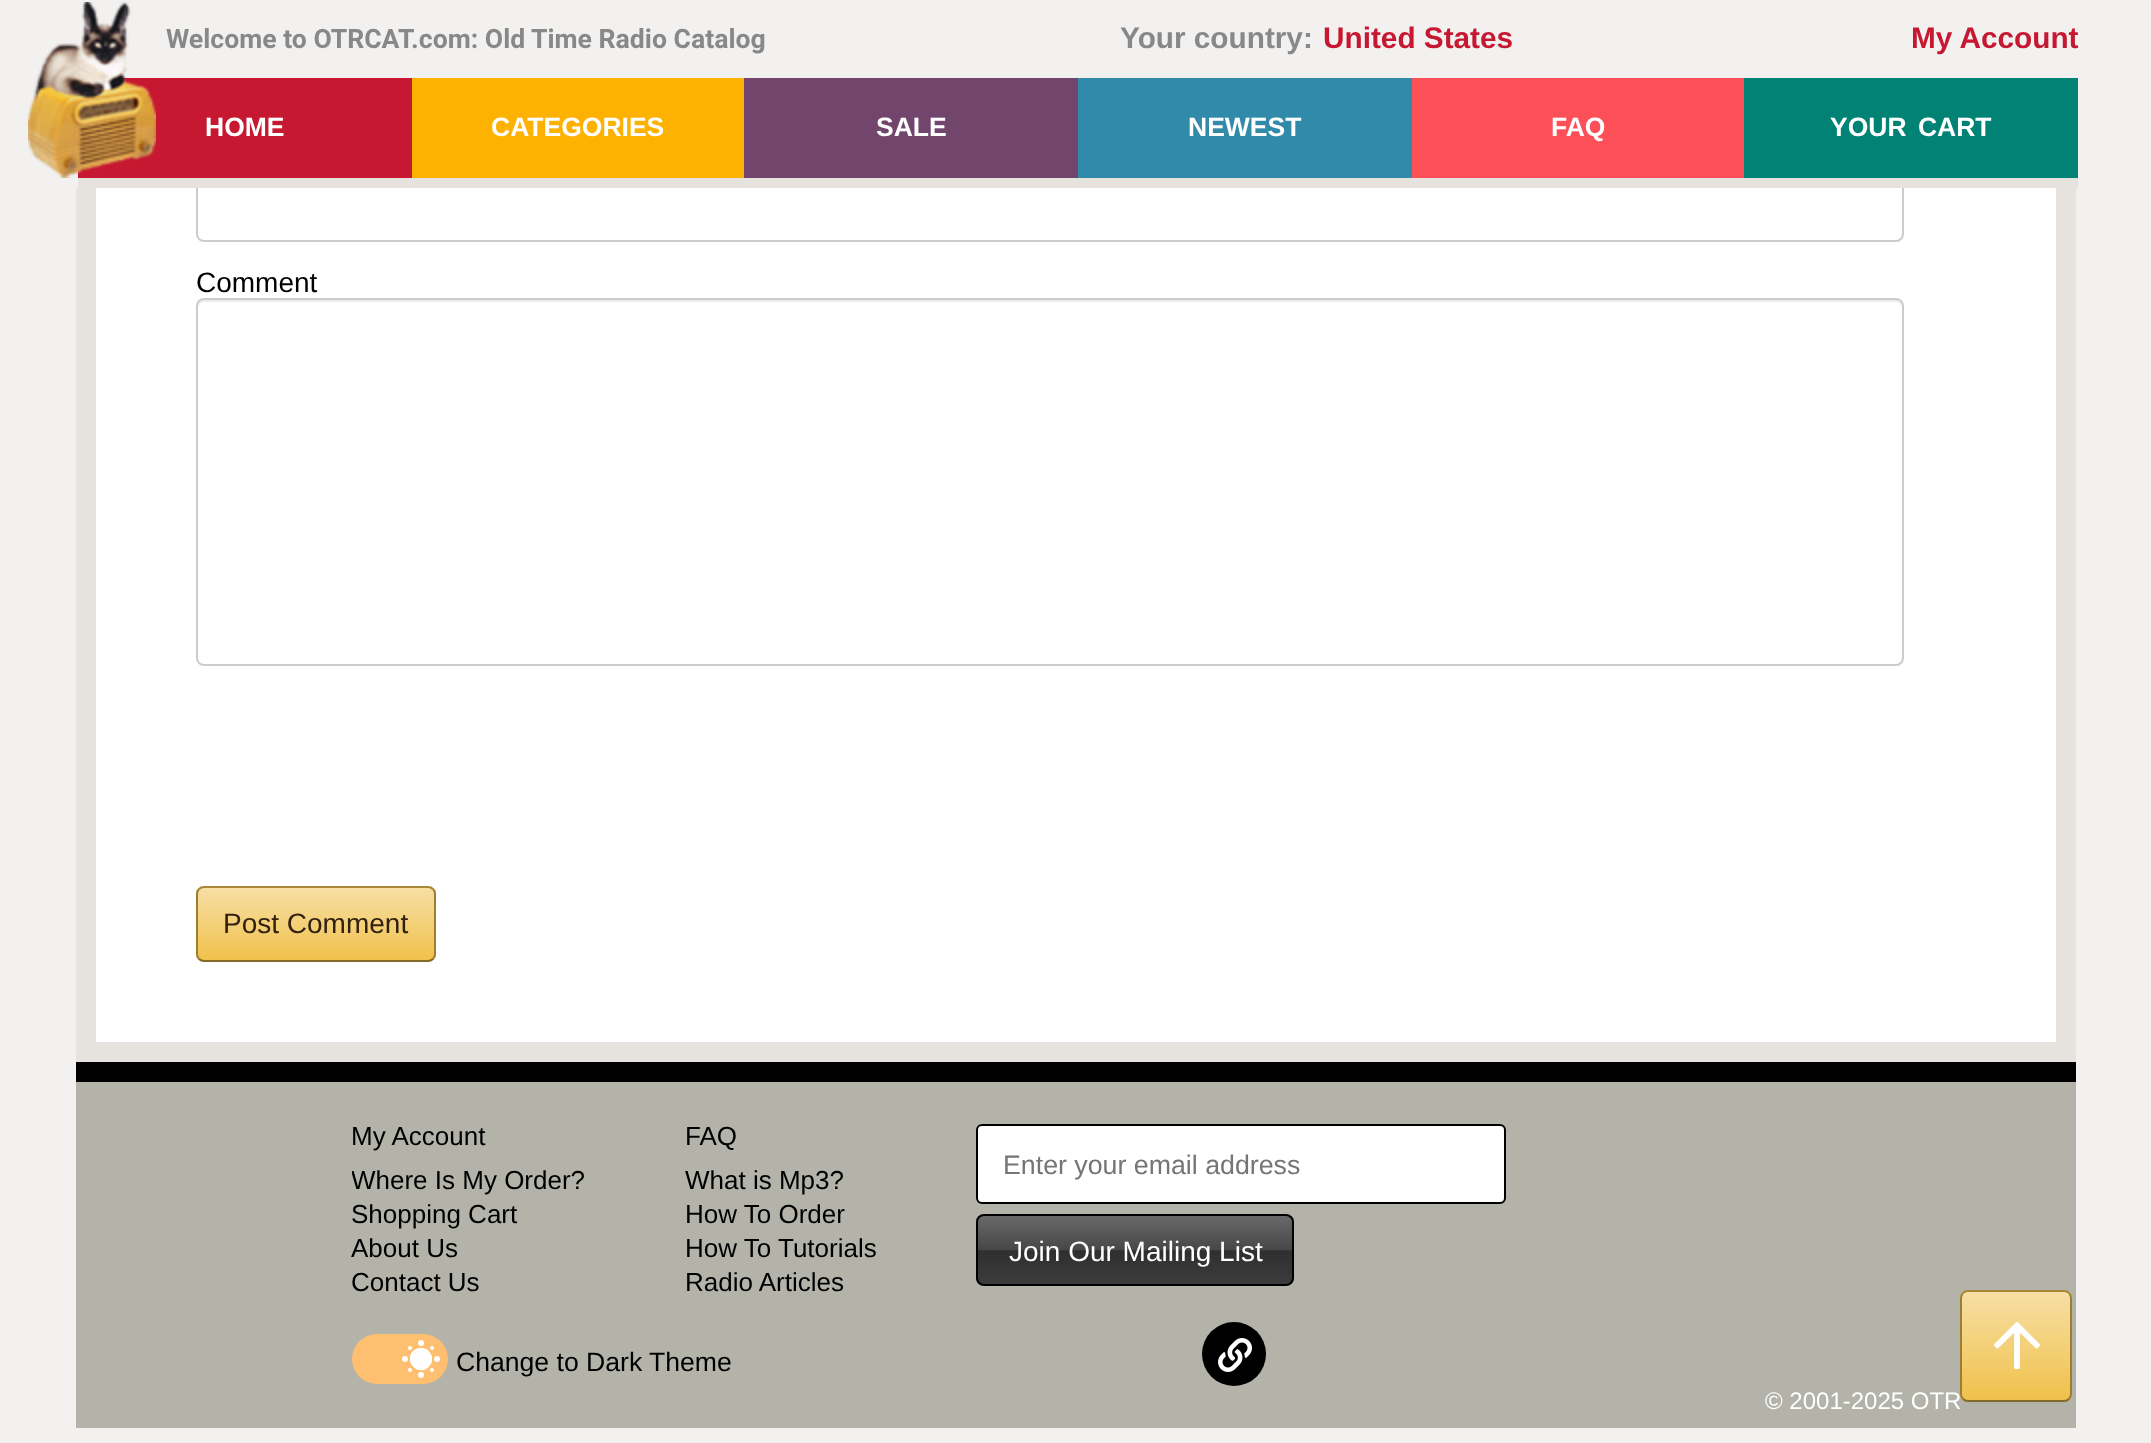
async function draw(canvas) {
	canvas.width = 2151;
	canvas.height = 1443;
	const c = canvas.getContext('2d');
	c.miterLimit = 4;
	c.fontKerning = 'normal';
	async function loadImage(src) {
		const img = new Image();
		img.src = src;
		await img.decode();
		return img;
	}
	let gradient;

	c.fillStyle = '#f2f1f0';
	c.fillRect(0, 0, 2151, 1443);
	c.fillStyle = '#fff';
	c.fillRect(96, 188, 1960, 854);
	c.strokeStyle = '#e6e3de';
	c.lineWidth = 20;
	c.strokeRect(86, -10, 1980, 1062);
	c.beginPath();
	c.roundRect(197, 147, 1706, 94, 7);
	c.strokeStyle = '#ccc';
	c.lineWidth = 2;
	c.stroke();
	c.fillStyle = '#f2f1f0';
	c.fillRect(76, 0, 2000, 188);
	c.font = 'bold 26.6px Roboto';
	c.fillStyle = '#888';
	c.fillText('Welcome to OTRCAT.com: Old Time Radio Catalog', 166, 48);
	c.font = 'bold 29.75px Liberation Sans';
	c.fillText('Your country:', 1120, 48);
	c.fillStyle = '#c61831';
	c.fillText('United States', 1323, 48);
	c.fillText('My Account', 1911, 48);
	c.fillRect(78, 78, 334, 100);
	c.drawImage(await loadImage('img1.png'), 28, 2, 128, 176);
	c.fillStyle = '#e6e3de';
	c.fillRect(78, 178, 2000, 10);
	c.font = 'bold 26.5px Liberation Sans';
	c.fillStyle = '#fff';
	c.fillText('HOME', 205, 136);
	c.fillStyle = '#fdb101';
	c.fillRect(412, 78, 332, 100);
	c.fillStyle = '#fff';
	c.fillText('CATEGORIES', 491, 136);
	c.fillStyle = '#72456c';
	c.fillRect(744, 78, 334, 100);
	c.fillStyle = '#fff';
	c.fillText('SALE', 876, 136);
	c.fillStyle = '#318aaa';
	c.fillRect(1078, 78, 334, 100);
	c.fillStyle = '#fff';
	c.fillText('NEWEST', 1188, 136);
	c.fillStyle = '#fd4f58';
	c.fillRect(1412, 78, 332, 100);
	c.fillStyle = '#fff';
	c.fillText('FAQ', 1551, 136);
	c.fillStyle = '#008375';
	c.fillRect(1744, 78, 334, 100);
	c.wordSpacing = '4px';
	c.fillStyle = '#fff';
	c.fillText('YOUR CART', 1830, 136);
	c.wordSpacing = '0px';
	c.font = '28px Liberation Sans';
	c.fillStyle = '#000';
	c.fillText('Comment', 196, 292);
	c.fillStyle = '#ececec';
	c.beginPath();
	c.moveTo(204, 302);
	c.lineTo(1896, 302);
	c.bezierCurveTo(1899, 302, 1902, 305, 1902, 308);
	c.bezierCurveTo(1902, 304, 1901, 300, 1896, 300);
	c.lineTo(204, 300);
	c.bezierCurveTo(199, 300, 198, 304, 198, 308);
	c.bezierCurveTo(198, 305, 201, 302, 204, 302);
	c.closePath();
	c.fill();
	c.beginPath();
	c.roundRect(197, 299, 1706, 366, 7);
	c.stroke();
	c.save();
	c.beginPath();
	c.roundRect(196, 886, 240, 76, 8);
	c.clip();
	gradient = c.createLinearGradient(316, 888, 316, 960);
	gradient.addColorStop(0, '#f7dfa5');
	gradient.addColorStop(1, '#f0c14b');
	c.fillStyle = gradient;
	c.fillRect(196, 888, 240, 72);
	c.restore();
	c.beginPath();
	c.moveTo(199, 889);
	c.bezierCurveTo(200.5, 887.5, 202, 887, 204, 887);
	c.lineTo(428, 887);
	c.bezierCurveTo(430, 887, 431.5, 887.5, 433, 889);
	c.strokeStyle = '#a88734';
	c.stroke();
	c.beginPath();
	c.moveTo(433, 889);
	c.bezierCurveTo(434.5, 890.5, 435, 892, 435, 894);
	c.lineTo(435, 954);
	c.bezierCurveTo(435, 956, 434.5, 957.5, 433, 959);
	c.strokeStyle = '#9c7e31';
	c.stroke();
	c.beginPath();
	c.moveTo(433, 959);
	c.bezierCurveTo(431.5, 960.5, 430, 961, 428, 961);
	c.lineTo(204, 961);
	c.bezierCurveTo(202, 961, 200.5, 960.5, 199, 959);
	c.strokeStyle = '#846a29';
	c.stroke();
	c.beginPath();
	c.moveTo(199, 959);
	c.bezierCurveTo(197.5, 957.5, 197, 956, 197, 954);
	c.lineTo(197, 894);
	c.bezierCurveTo(197, 892, 197.5, 890.5, 199, 889);
	c.strokeStyle = '#9c7e31';
	c.stroke();
	c.fillStyle = '#332110';
	c.fillText('Post Comment', 223, 933);
	c.fillStyle = '#b3b3aa';
	c.fillRect(76, 1082, 2000, 346);
	c.fillStyle = '#000';
	c.fillRect(76, 1062, 2000, 20);
	c.font = '26px Liberation Sans';
	c.fillText('My Account', 351, 1145);
	c.save();
	c.beginPath();
	c.rect(352, 1082, 1450, 304);
	c.clip();
	c.fillText('Where Is My Order?', 351, 1189);
	c.restore();
	for (const [text, x, y] of [
		['Shopping Cart', 351, 1223],
		['About Us', 351, 1257],
		['Contact Us', 351, 1291],
		['FAQ', 685, 1145],
		['What is Mp3?', 685, 1189],
		['How To Order', 685, 1223],
		['How To Tutorials', 685, 1257],
		['Radio Articles', 685, 1291],
	]) {
		c.fillText(text, x, y);
	}
	c.fillStyle = '#fff';
	c.beginPath();
	c.roundRect(977, 1125, 528, 78, 5);
	c.fill();
	c.strokeStyle = '#000';
	c.stroke();
	c.font = '26.75px Liberation Sans';
	c.fillStyle = '#757575';
	c.fillText('Enter your email address', 1003, 1174);
	c.save();
	c.beginPath();
	c.roundRect(976, 1214, 318, 72, 8);
	c.clip();
	gradient = c.createLinearGradient(1135, 1216, 1135, 1284);
	gradient.addColorStop(0, '#696969');
	gradient.addColorStop(0.5, '#474747');
	gradient.addColorStop(0.51, '#2f2f2f');
	gradient.addColorStop(1, '#3c3c3c');
	c.fillStyle = gradient;
	c.fillRect(976, 1216, 318, 68);
	c.restore();
	c.beginPath();
	c.roundRect(977, 1215, 316, 70, 7);
	c.stroke();
	c.font = '28px Liberation Sans';
	c.fillStyle = '#fff';
	c.fillText('Join Our Mailing List', 1009, 1261);
	c.fillStyle = '#000';
	c.beginPath();
	c.arc(1234, 1354, 32, 0, 2 * Math.PI);
	c.fill();
	c.drawImage(await loadImage('img2.png'), 1218, 1338, 34, 34);
	c.fillStyle = '#ffbf71';
	c.beginPath();
	c.roundRect(352, 1334, 96, 50, 25);
	c.fill();
	c.fillStyle = '#fff';
	c.beginPath();
	c.arc(410, 1348, 2, 0, 2 * Math.PI);
	c.fill();
	c.beginPath();
	c.arc(405, 1359, 3, 0, 2 * Math.PI);
	c.fill();
	c.beginPath();
	c.arc(410, 1370, 2, 0, 2 * Math.PI);
	c.fill();
	c.beginPath();
	c.arc(421, 1375, 3, 0, 2 * Math.PI);
	c.fill();
	c.beginPath();
	c.arc(432, 1370, 2, 0, 2 * Math.PI);
	c.fill();
	c.beginPath();
	c.arc(437, 1359, 3, 0, 2 * Math.PI);
	c.fill();
	c.beginPath();
	c.arc(432, 1348, 2, 0, 2 * Math.PI);
	c.fill();
	c.beginPath();
	c.arc(421, 1343, 3, 0, 2 * Math.PI);
	c.fill();
	c.beginPath();
	c.arc(421, 1359, 11, 0, 2 * Math.PI);
	c.fill();
	c.beginPath();
	c.moveTo(421, 1348);
	c.bezierCurveTo(418, 1348, 415.5, 1349, 413, 1351);
	c.bezierCurveTo(404.5, 1360, 415.5, 1374.5, 426, 1369);
	c.lineTo(426, 1364);
	c.lineTo(431, 1364);
	c.bezierCurveTo(434.5, 1357, 429, 1348, 421, 1348);
	c.closePath();
	c.fill();
	c.font = '26.6px Liberation Sans';
	c.fillStyle = '#000';
	c.fillText('Change to Dark', 456, 1371);
	c.fillText('Theme', 649, 1371);
	c.font = '24px Liberation Sans';
	c.fillStyle = '#fff';
	c.fillText('© 2001-2025 OTR', 1765, 1409);
	c.save();
	c.beginPath();
	c.roundRect(1960, 1290, 112, 112, 8);
	c.clip();
	gradient = c.createLinearGradient(2016, 1292, 2016, 1400);
	gradient.addColorStop(0, '#f7dfa5');
	gradient.addColorStop(1, '#f0c14b');
	c.fillStyle = gradient;
	c.fillRect(1960, 1292, 112, 108);
	c.restore();
	c.beginPath();
	c.moveTo(1963, 1293);
	c.bezierCurveTo(1964.5, 1291.5, 1966, 1291, 1968, 1291);
	c.lineTo(2064, 1291);
	c.bezierCurveTo(2066, 1291, 2067.5, 1291.5, 2069, 1293);
	c.strokeStyle = '#a88734';
	c.stroke();
	c.beginPath();
	c.moveTo(2069, 1293);
	c.bezierCurveTo(2070.5, 1294.5, 2071, 1296, 2071, 1298);
	c.lineTo(2071, 1394);
	c.bezierCurveTo(2071, 1396, 2070.5, 1397.5, 2069, 1399);
	c.strokeStyle = '#9c7e31';
	c.stroke();
	c.beginPath();
	c.moveTo(2069, 1399);
	c.bezierCurveTo(2067.5, 1400.5, 2066, 1401, 2064, 1401);
	c.lineTo(1968, 1401);
	c.bezierCurveTo(1966, 1401, 1964.5, 1400.5, 1963, 1399);
	c.strokeStyle = '#846a29';
	c.stroke();
	c.beginPath();
	c.moveTo(1963, 1399);
	c.bezierCurveTo(1961.5, 1397.5, 1961, 1396, 1961, 1394);
	c.lineTo(1961, 1298);
	c.bezierCurveTo(1961, 1296, 1961.5, 1294.5, 1963, 1293);
	c.strokeStyle = '#9c7e31';
	c.stroke();
	c.drawImage(await loadImage('img3.png'), 1994, 1322, 46, 47);
}

draw(document.querySelector('canvas'));
